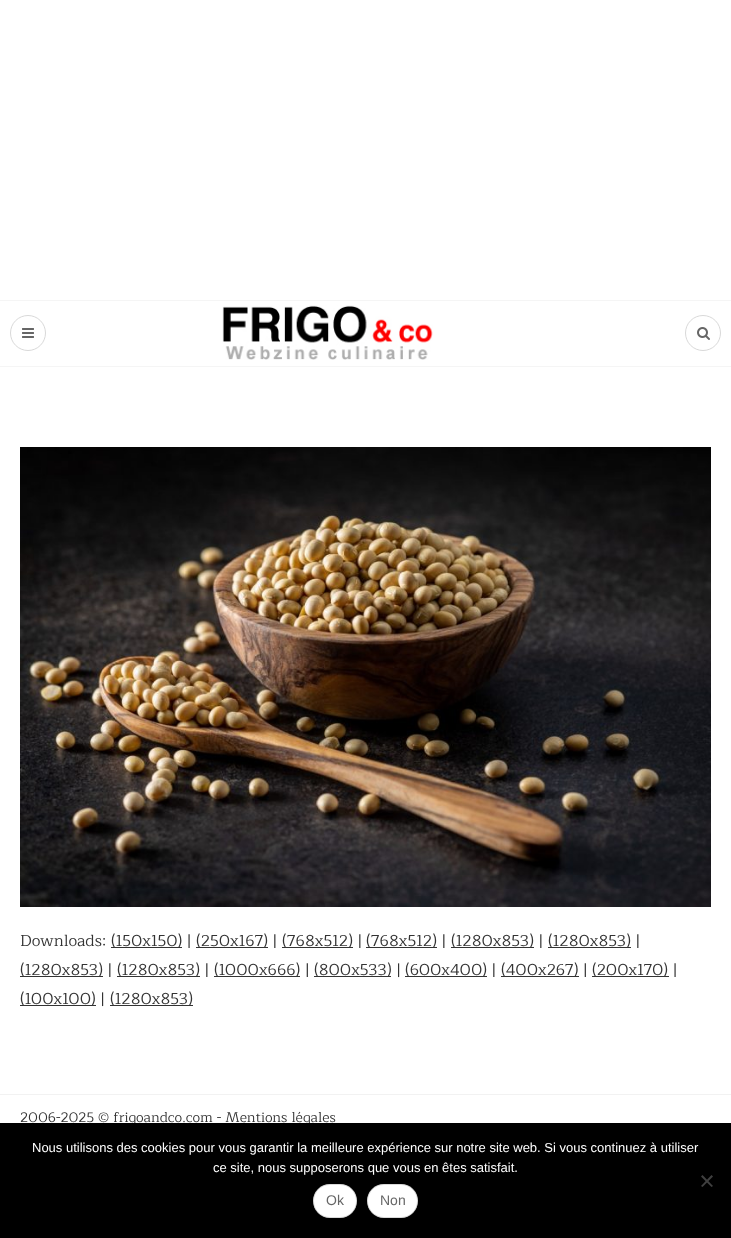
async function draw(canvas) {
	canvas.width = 731;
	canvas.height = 1238;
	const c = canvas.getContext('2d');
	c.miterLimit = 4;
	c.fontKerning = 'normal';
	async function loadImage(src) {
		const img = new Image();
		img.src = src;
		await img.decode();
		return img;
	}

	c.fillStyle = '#fff';
	c.fillRect(0, 0, 731, 1238);
	c.fillStyle = '#f5f5f5';
	c.fillRect(0, 300, 731, 1);
	c.fillRect(0, 366, 731, 1);
	c.beginPath();
	c.arc(28, 333, 17.5, 0, 2 * Math.PI);
	c.strokeStyle = '#d9d9d9';
	c.stroke();
	c.drawImage(await loadImage('img1.png'), 22, 328, 12, 10);
	c.drawImage(await loadImage('img2.png'), 222, 305, 211, 55);
	c.beginPath();
	c.arc(703, 333, 17.5, 0, 2 * Math.PI);
	c.stroke();
	c.drawImage(await loadImage('img3.png'), 697, 327, 13, 13);
	c.drawImage(await loadImage('img4.png'), 20, 447, 691, 460);
	c.font = '16px Maitree';
	c.fillStyle = '#333';
	c.fillText('Downloads:', 20, 946);
	c.fillRect(111, 947, 71, 1);
	c.fillText('(150x150) |', 111, 946);
	c.fillRect(196, 947, 72, 1);
	c.fillText('(250x167) |', 196, 946);
	c.fillRect(282, 947, 71, 1);
	c.fillText('(768x512) |', 282, 946);
	c.fillRect(366, 947, 71, 1);
	c.fillText('(768x512) |', 366, 946);
	c.fillRect(451, 947, 83, 1);
	c.fillText('(1280x853) |', 451, 946);
	c.fillRect(548, 947, 83, 1);
	c.fillText('(1280x853) |', 548, 946);
	c.fillRect(20, 976, 83, 1);
	c.fillText('(1280x853) |', 20, 975);
	c.fillRect(117, 976, 83, 1);
	c.fillText('(1280x853) |', 117, 975);
	c.fillRect(214, 976, 86, 1);
	c.fillText('(1000x666) |', 214, 975);
	c.fillRect(314, 976, 77, 1);
	c.fillText('(800x533) |', 314, 975);
	c.fillRect(405, 976, 82, 1);
	c.fillText('(600x400) |', 405, 975);
	c.fillRect(501, 976, 78, 1);
	c.fillText('(400x267) |', 501, 975);
	c.fillRect(592, 976, 77, 1);
	c.fillText('(200x170) |', 592, 975);
	c.fillRect(20, 1005, 76, 1);
	c.fillText('(100x100) |', 20, 1004);
	c.fillRect(110, 1005, 83, 1);
	c.fillText('(1280x853)', 110, 1004);
	c.fillStyle = '#f2f2f2';
	c.fillRect(0, 1094, 731, 1);
	c.font = '14px Maitree';
	c.fillStyle = '#333';
	c.fillText('2006-2025 © frigoandco.com - Mentions légales', 20, 1122);
	c.fillStyle = '#000';
	c.fillRect(0, 1123, 731, 115);
	c.font = '13px Liberation Sans';
	c.fillStyle = '#fff';
	c.fillText('Nous utilisons des cookies pour vous garantir la meilleure expérience sur notre site web. Si vous continuez à utiliser', 32, 1152);
	c.fillText('ce site, nous supposerons que vous en êtes satisfait.', 213, 1172);
	c.fillStyle = '#404040';
	c.beginPath();
	c.moveTo(711.5, 1175);
	c.lineTo(713, 1176.5);
	c.lineTo(702.5, 1187);
	c.lineTo(701, 1186);
	c.closePath();
	c.fill();
	c.beginPath();
	c.moveTo(701, 1176.5);
	c.lineTo(702.5, 1175);
	c.lineTo(713, 1186);
	c.lineTo(711.5, 1187);
	c.closePath();
	c.fill();
	c.fillStyle = '#fff';
	c.beginPath();
	c.roundRect(313, 1184, 44, 34, 17);
	c.fill();
	c.beginPath();
	c.roundRect(313.5, 1184.5, 43, 33, 16.5);
	c.strokeStyle = '#00000026';
	c.stroke();
	c.font = '14px Liberation Sans';
	c.fillStyle = '#666';
	c.fillText('Ok', 326, 1205);
	c.fillStyle = '#fff';
	c.beginPath();
	c.roundRect(367, 1184, 51, 34, 17);
	c.fill();
	c.beginPath();
	c.roundRect(367.5, 1184.5, 50, 33, 16.5);
	c.stroke();
	c.fillStyle = '#666';
	c.fillText('Non', 380, 1205);
}

draw(document.querySelector('canvas'));
